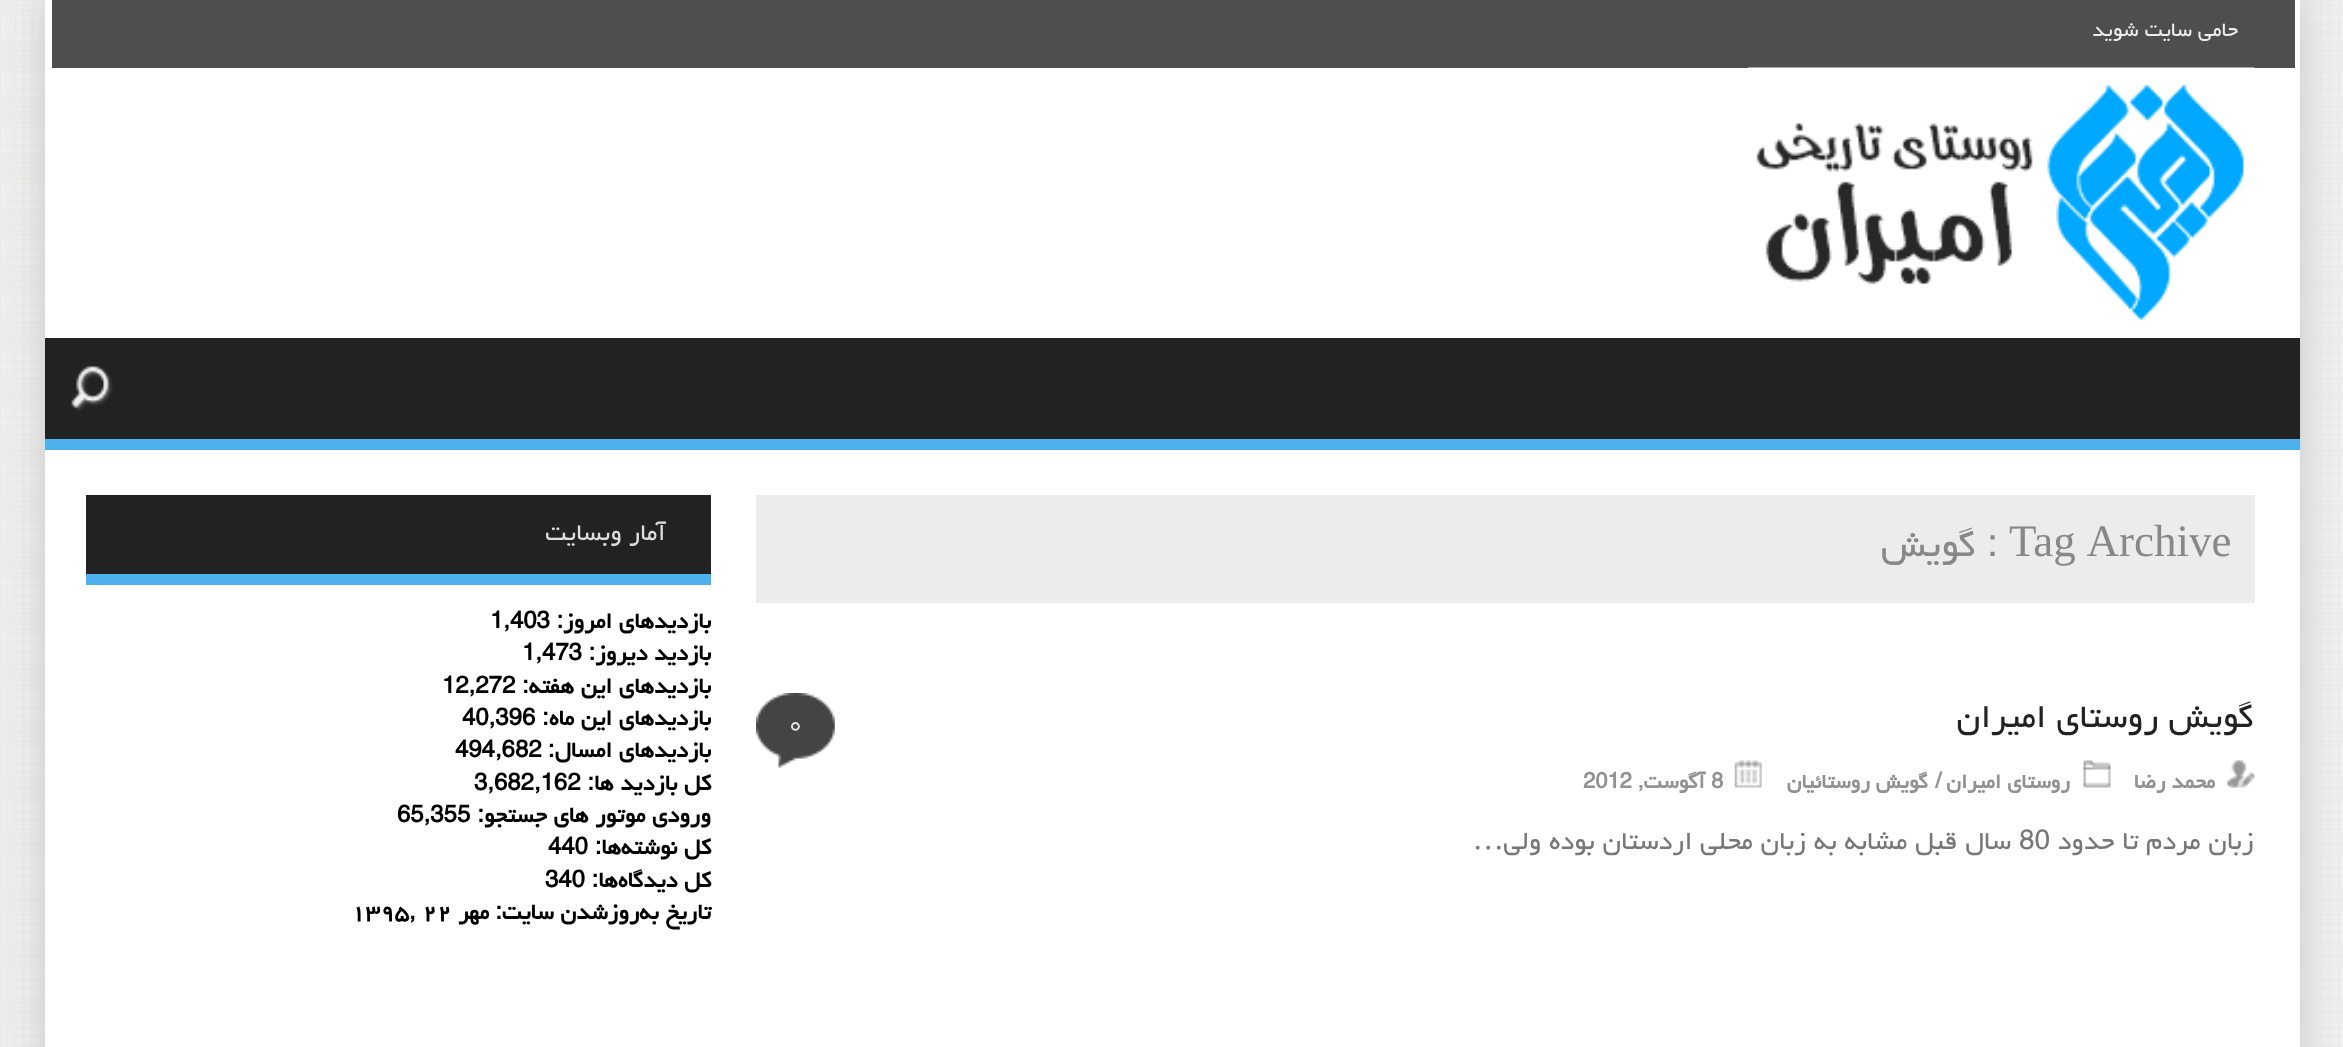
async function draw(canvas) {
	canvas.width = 2343;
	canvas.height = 1047;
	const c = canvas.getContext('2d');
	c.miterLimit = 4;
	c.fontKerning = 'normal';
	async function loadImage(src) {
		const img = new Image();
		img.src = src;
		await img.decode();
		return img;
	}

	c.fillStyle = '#fff';
	c.fillRect(0, 0, 2343, 1047);
	c.drawImage(await loadImage('img1.png'), 0, 0, 2343, 1047);
	c.fillStyle = '#c7c7c7';
	c.filter = 'blur(19px)';
	c.beginPath();
	c.rect(45, 0, 2255, 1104);
	c.fill();
	c.filter = 'none';
	c.fillStyle = '#fff';
	c.fillRect(45, 0, 2255, 1047);
	c.fillStyle = '#4e4e4e';
	c.fillRect(52, 0, 2243, 68);
	c.direction = 'rtl';
	c.font = '24.75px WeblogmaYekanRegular';
	c.fillStyle = '#eee';
	c.fillText('حامی سایت شوید', 2238, 36);
	c.drawImage(await loadImage('img2.png'), 1748, 67, 507, 254);
	c.fillStyle = '#222';
	c.fillRect(45, 338, 2255, 101);
	c.fillStyle = '#4db2ec';
	c.fillRect(45, 439, 2255, 11);
	c.drawImage(await loadImage('img3.png'), 71, 366, 42, 46);
	c.fillStyle = '#ececec';
	c.fillRect(756, 495, 1499, 108);
	c.wordSpacing = '2px';
	c.direction = 'ltr';
	c.font = '45px Liberation Serif';
	c.fillStyle = '#888';
	c.fillText('Tag Archive', 2009, 556);
	c.wordSpacing = '0px';
	c.direction = 'rtl';
	c.font = '45px WeblogmaYekanRegular';
	c.fillText(': گویش', 1998, 556);
	c.font = '40.5px WeblogmaYekanRegular';
	c.fillStyle = '#222';
	c.fillText('گویش روستای امیران', 2254, 727);
	c.drawImage(await loadImage('img4.png'), 756, 693, 79, 75);
	c.direction = 'ltr';
	c.font = '31.5px WeblogmaYekanRegular';
	c.fillStyle = '#ddd';
	c.fillText('۰', 787, 731);
	c.drawImage(await loadImage('img5.png'), 2227, 760, 28, 28);
	c.direction = 'rtl';
	c.font = 'bold 24.75px WeblogmaYekanRegular';
	c.fillStyle = '#929292';
	c.fillText('محمد رضا', 2215, 788);
	c.drawImage(await loadImage('img6.png'), 2083, 760, 28, 28);
	c.fillText('روستای امیران', 2070, 788);
	c.direction = 'ltr';
	c.fillText('/', 1935, 788);
	c.direction = 'rtl';
	c.fillText('گویش روستائیان', 1928, 788);
	c.drawImage(await loadImage('img7.png'), 1734, 760, 28, 28);
	c.direction = 'ltr';
	c.fillText('8', 1711, 788);
	c.direction = 'rtl';
	c.fillText('آگوست,', 1705, 788);
	c.direction = 'ltr';
	c.fillText('2012', 1583, 788);
	c.direction = 'rtl';
	c.font = '31.5px WeblogmaYekanRegular';
	c.fillStyle = '#777';
	c.fillText('زبان مردم تا حدود', 2254, 849);
	c.direction = 'ltr';
	c.fillText('80', 2019, 849);
	c.direction = 'rtl';
	c.fillText('سال قبل مشابه به زبان محلی اردستان بوده ولی', 2011, 849);
	c.font = '31.5px Liberation Serif';
	c.fillText('…', 1504, 849);
	c.fillStyle = '#222';
	c.fillRect(86, 495, 625, 79);
	c.fillStyle = '#4db2ec';
	c.fillRect(86, 574, 625, 11);
	c.font = '29.25px WeblogmaYekanRegular';
	c.fillStyle = '#ddd';
	c.fillText('آمار وبسایت', 666, 540);
	c.font = 'bold 27px WeblogmaYekanRegular';
	c.fillStyle = '#000';
	c.fillText('بازدیدهای امروز:', 711, 628);
	c.direction = 'ltr';
	c.fillText('1,403', 490, 628);
	c.direction = 'rtl';
	c.fillText('بازدید دیروز:', 711, 660);
	c.direction = 'ltr';
	c.fillText('1,473', 522, 660);
	c.direction = 'rtl';
	c.fillText('بازدیدهای این هفته:', 711, 693);
	c.direction = 'ltr';
	c.fillText('12,272', 442, 693);
	c.direction = 'rtl';
	c.fillText('بازدیدهای این ماه:', 711, 725);
	c.direction = 'ltr';
	c.fillText('40,396', 462, 725);
	c.direction = 'rtl';
	c.fillText('بازدیدهای امسال:', 711, 757);
	c.direction = 'ltr';
	c.fillText('494,682', 455, 757);
	c.direction = 'rtl';
	c.fillText('کل بازدید ها:', 711, 790);
	c.direction = 'ltr';
	c.fillText('3,682,162', 474, 790);
	c.direction = 'rtl';
	c.fillText('ورودی‌ موتور های جستجو:', 711, 822);
	c.direction = 'ltr';
	c.fillText('65,355', 397, 822);
	c.direction = 'rtl';
	c.fillText('کل نوشته‌ها:', 711, 854);
	c.direction = 'ltr';
	c.fillText('440', 548, 854);
	c.direction = 'rtl';
	c.fillText('کل دیدگاه‌ها:', 711, 887);
	c.direction = 'ltr';
	c.fillText('340', 545, 887);
	c.direction = 'rtl';
	c.fillText('تاریخ به‌روزشدن سایت:', 711, 919);
	c.fillText('مهر', 489, 919);
	c.direction = 'ltr';
	c.fillText('۱۳۹۵, ۲۲', 351, 919);
}

draw(document.querySelector('canvas'));
